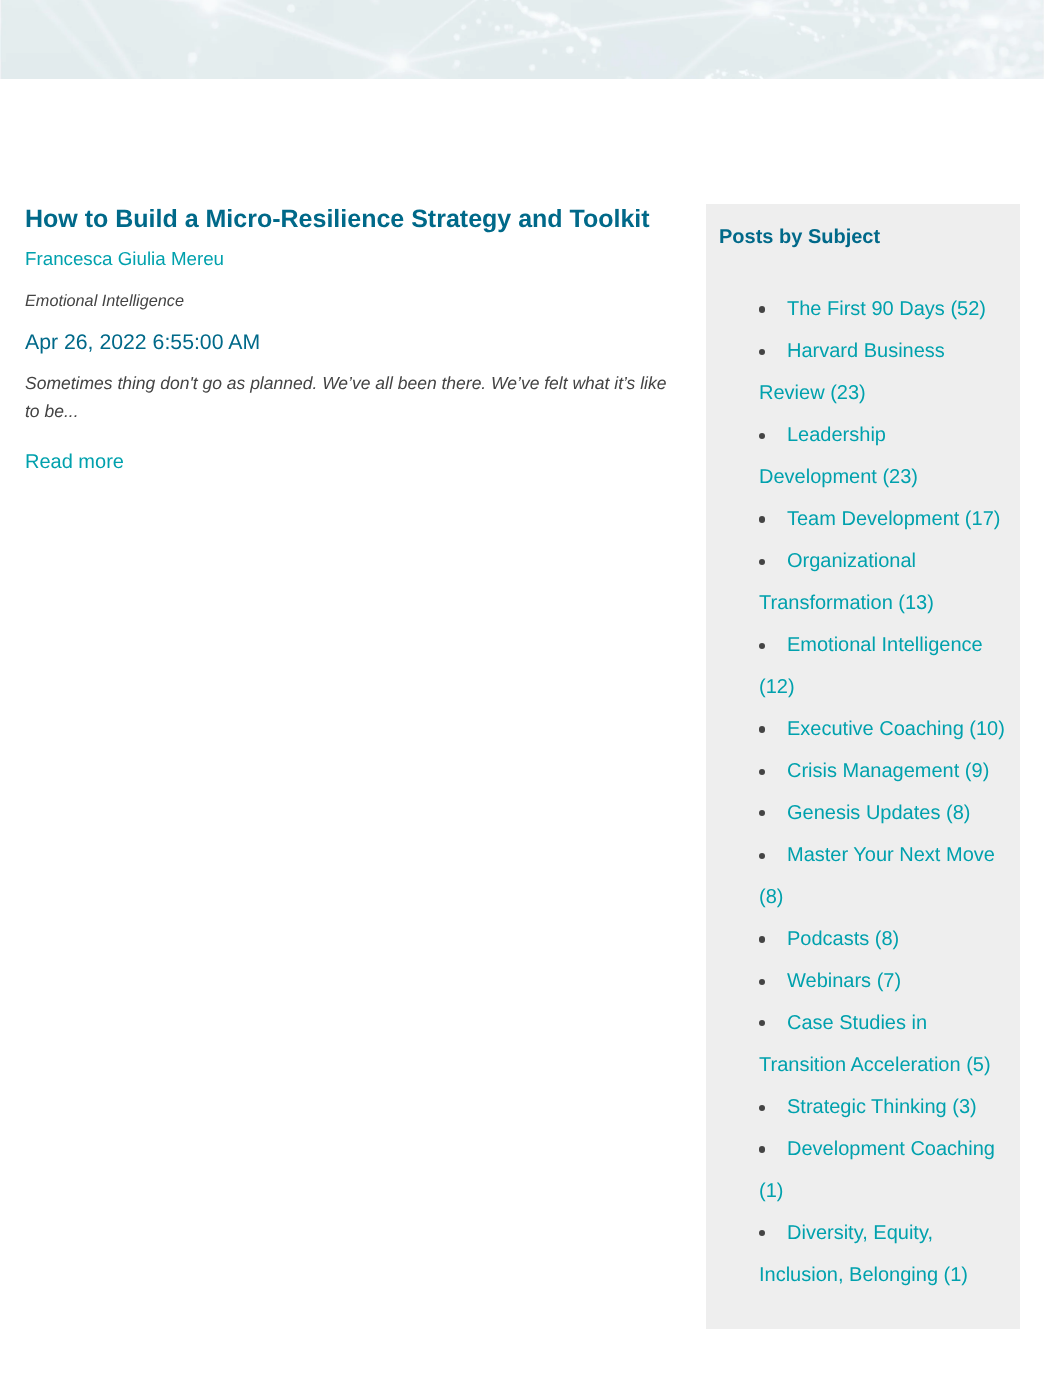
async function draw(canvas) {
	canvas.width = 1044;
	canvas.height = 1387;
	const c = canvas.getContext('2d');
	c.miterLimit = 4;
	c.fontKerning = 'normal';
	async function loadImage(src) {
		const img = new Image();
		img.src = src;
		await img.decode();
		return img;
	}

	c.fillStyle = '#fff';
	c.fillRect(0, 0, 1044, 1387);
	c.drawImage(await loadImage('img1.png'), 0, 0, 1044, 79);
	c.font = 'bold 25px Liberation Sans';
	c.fillStyle = '#006989';
	c.fillText('How to Build a Micro-Resilience Strategy and Toolkit', 25, 227);
	c.font = '18.75px Liberation Sans';
	c.fillStyle = '#00a1ad';
	c.fillText('Francesca Giulia Mereu', 25, 265);
	c.font = 'italic 16.25px Liberation Sans';
	c.fillStyle = '#444';
	c.fillText('Emotional Intelligence', 25, 306);
	c.font = '21.25px Liberation Sans';
	c.fillStyle = '#006989';
	c.fillText('Apr 26, 2022 6:55:00 AM', 25, 349);
	c.font = 'italic 17.5px Liberation Sans';
	c.fillStyle = '#444';
	c.fillText('Sometimes thing don\'t go as planned. We’ve all been there. We’ve felt what it’s like', 25, 389);
	c.fillText('to be...', 25, 417);
	c.font = '20px Liberation Sans';
	c.fillStyle = '#00a1ad';
	c.fillText('Read more', 25, 468);
	c.fillStyle = '#eee';
	c.fillRect(706, 204, 314, 1125);
	c.font = 'bold 20px Liberation Sans';
	c.fillStyle = '#006989';
	c.fillText('Posts by Subject', 719, 243);
	c.fillStyle = '#444';
	c.beginPath();
	c.roundRect(759, 306, 6, 7, 3);
	c.fill();
	c.font = '20px Liberation Sans';
	c.fillStyle = '#00a1ad';
	c.fillText('The First 90 Days (52)', 787, 315);
	c.fillStyle = '#444';
	c.beginPath();
	c.arc(762, 352, 3, 0, 2 * Math.PI);
	c.fill();
	c.fillStyle = '#00a1ad';
	c.fillText('Harvard Business', 787, 357);
	c.fillText('Review (23)', 759, 399);
	c.fillStyle = '#444';
	c.beginPath();
	c.arc(762, 436, 3, 0, 2 * Math.PI);
	c.fill();
	c.fillStyle = '#00a1ad';
	c.fillText('Leadership', 787, 441);
	c.fillText('Development (23)', 759, 483);
	c.fillStyle = '#444';
	c.beginPath();
	c.roundRect(759, 516, 6, 7, 3);
	c.fill();
	c.fillStyle = '#00a1ad';
	c.fillText('Team Development (17)', 787, 525);
	c.fillStyle = '#444';
	c.beginPath();
	c.arc(762, 562, 3, 0, 2 * Math.PI);
	c.fill();
	c.fillStyle = '#00a1ad';
	c.fillText('Organizational', 787, 567);
	c.fillText('Transformation (13)', 759, 609);
	c.fillStyle = '#444';
	c.beginPath();
	c.arc(762, 646, 3, 0, 2 * Math.PI);
	c.fill();
	c.fillStyle = '#00a1ad';
	c.fillText('Emotional Intelligence', 787, 651);
	c.fillText('(12)', 759, 693);
	c.fillStyle = '#444';
	c.beginPath();
	c.roundRect(759, 726, 6, 7, 3);
	c.fill();
	c.fillStyle = '#00a1ad';
	c.fillText('Executive Coaching (10)', 787, 735);
	c.fillStyle = '#444';
	c.beginPath();
	c.arc(762, 772, 3, 0, 2 * Math.PI);
	c.fill();
	c.fillStyle = '#00a1ad';
	c.fillText('Crisis Management (9)', 787, 777);
	c.fillStyle = '#444';
	c.beginPath();
	c.arc(762, 813, 3, 0, 2 * Math.PI);
	c.fill();
	c.fillStyle = '#00a1ad';
	c.fillText('Genesis Updates (8)', 787, 819);
	c.fillStyle = '#444';
	c.beginPath();
	c.arc(762, 856, 3, 0, 2 * Math.PI);
	c.fill();
	c.fillStyle = '#00a1ad';
	c.fillText('Master Your Next Move', 787, 861);
	c.fillText('(8)', 759, 903);
	c.fillStyle = '#444';
	c.beginPath();
	c.roundRect(759, 936, 6, 7, 3);
	c.fill();
	c.fillStyle = '#00a1ad';
	c.fillText('Podcasts (8)', 787, 945);
	c.fillStyle = '#444';
	c.beginPath();
	c.arc(762, 982, 3, 0, 2 * Math.PI);
	c.fill();
	c.fillStyle = '#00a1ad';
	c.fillText('Webinars (7)', 787, 987);
	c.fillStyle = '#444';
	c.beginPath();
	c.arc(762, 1023, 3, 0, 2 * Math.PI);
	c.fill();
	c.fillStyle = '#00a1ad';
	c.fillText('Case Studies in', 787, 1029);
	c.fillText('Transition Acceleration (5)', 759, 1071);
	c.fillStyle = '#444';
	c.beginPath();
	c.arc(762, 1108, 3, 0, 2 * Math.PI);
	c.fill();
	c.fillStyle = '#00a1ad';
	c.fillText('Strategic Thinking (3)', 787, 1113);
	c.fillStyle = '#444';
	c.beginPath();
	c.roundRect(759, 1146, 6, 7, 3);
	c.fill();
	c.fillStyle = '#00a1ad';
	c.fillText('Development Coaching', 787, 1155);
	c.fillText('(1)', 759, 1197);
	c.fillStyle = '#444';
	c.beginPath();
	c.arc(762, 1233, 3, 0, 2 * Math.PI);
	c.fill();
	c.fillStyle = '#00a1ad';
	c.fillText('Diversity, Equity,', 787, 1239);
	c.fillText('Inclusion, Belonging (1)', 759, 1281);
}

draw(document.querySelector('canvas'));
